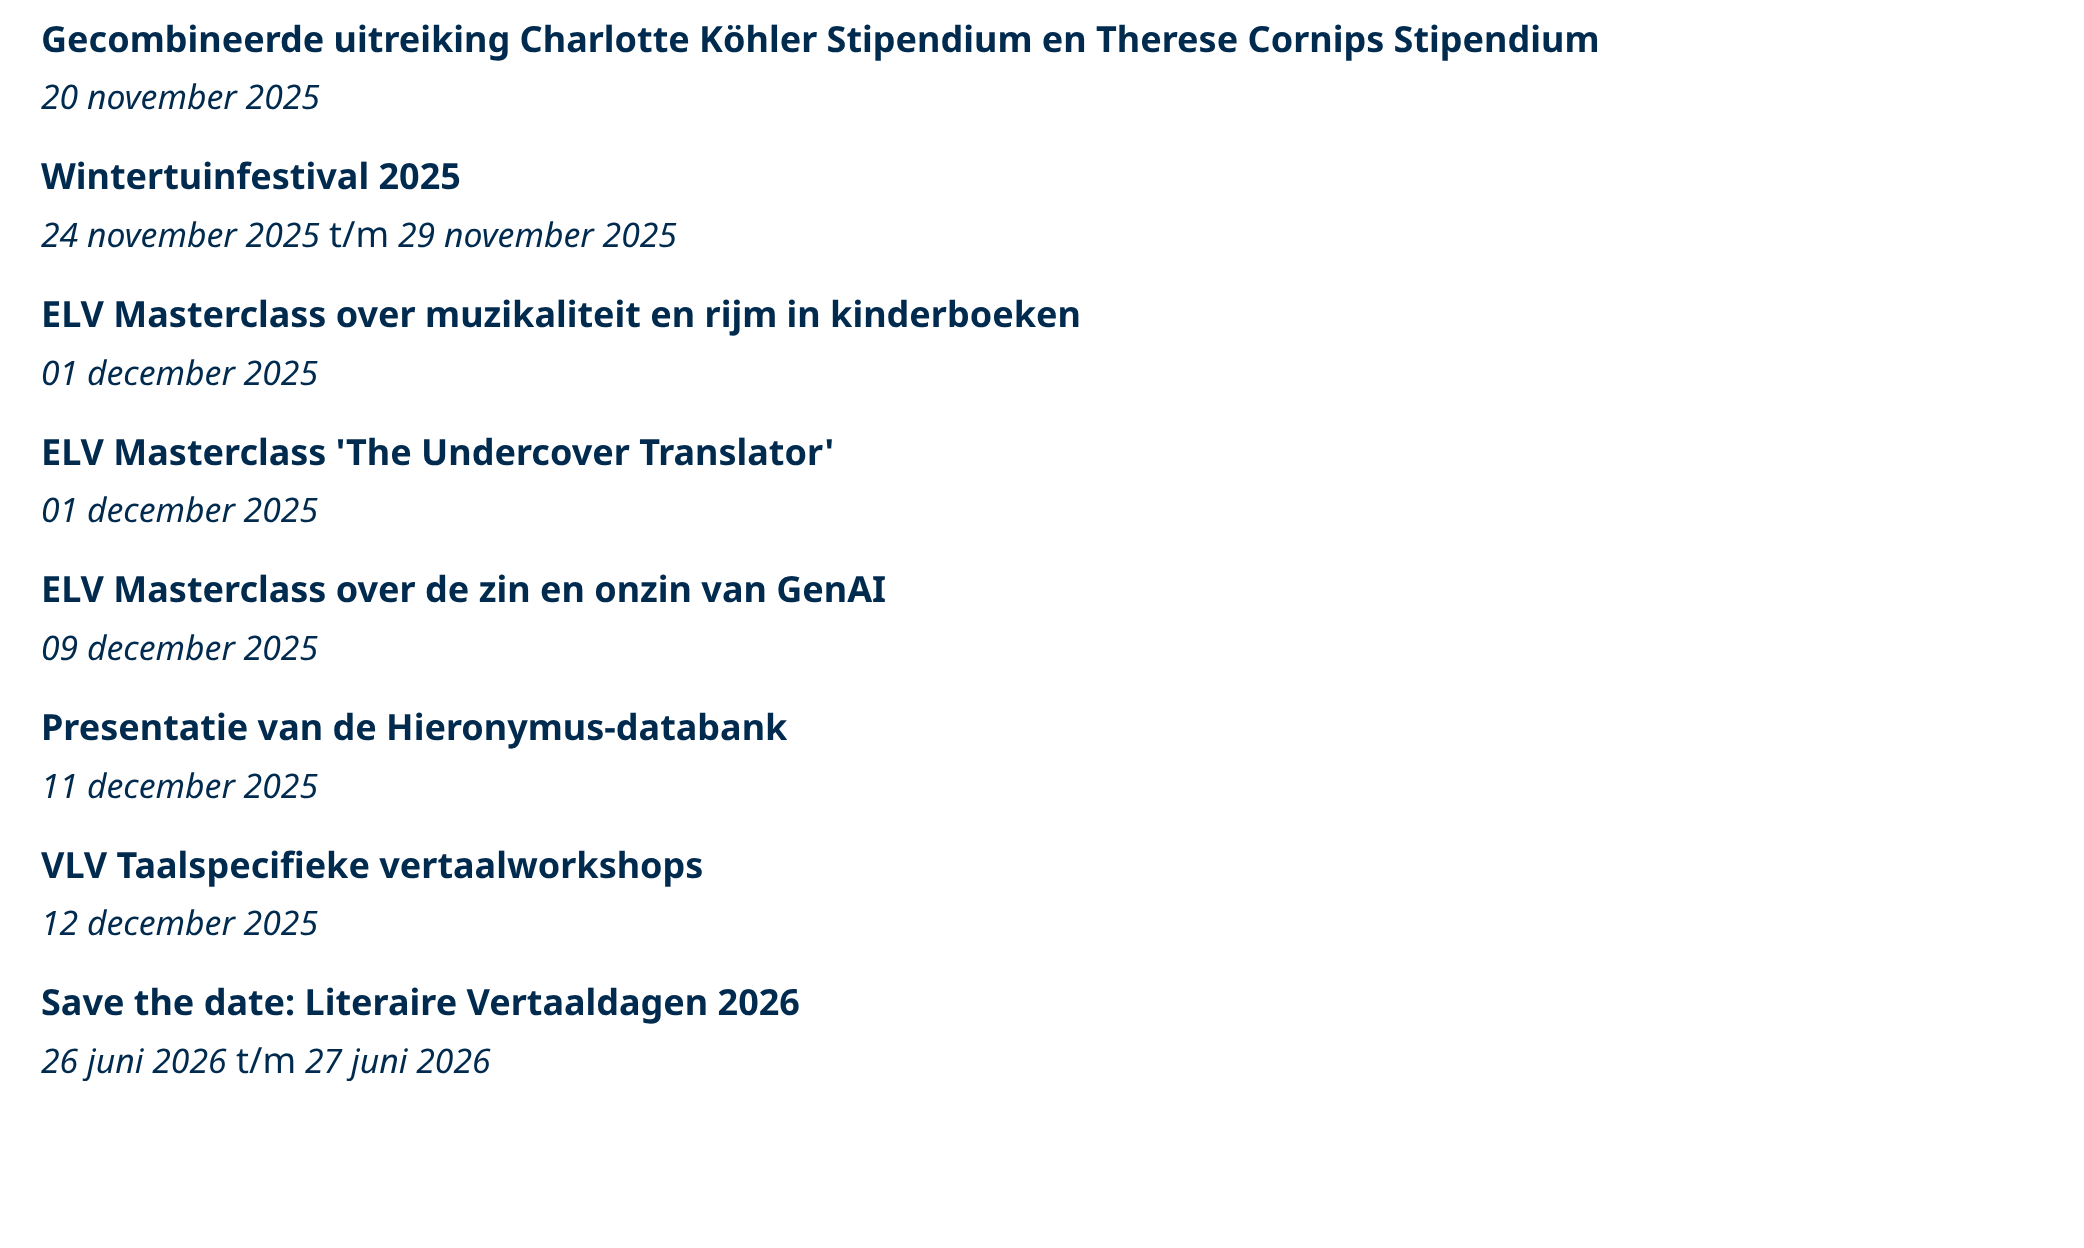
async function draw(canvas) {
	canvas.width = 2084;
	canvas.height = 1248;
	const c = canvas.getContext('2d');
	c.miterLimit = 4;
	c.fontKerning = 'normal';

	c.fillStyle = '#fff';
	c.fillRect(0, 0, 2084, 1248);
	c.font = 'bold 36px Noto Sans';
	c.fillStyle = '#002a4e';
	c.fillText('Gecombineerde uitreiking Charlotte Köhler Stipendium en Therese Cornips Stipendium', 41, 52);
	c.font = 'italic 33.75px Noto Sans';
	c.fillText('20 november 2025', 41, 109);
	c.font = 'bold 36px Noto Sans';
	c.fillText('Wintertuinfestival 2025', 41, 189);
	c.font = 'italic 33.75px Noto Sans';
	c.fillText('24 november 2025', 41, 247);
	c.font = '36px Noto Sans';
	c.fillText('t/m', 329, 247);
	c.font = 'italic 33.75px Noto Sans';
	c.fillText('29 november 2025', 398, 247);
	c.font = 'bold 36px Noto Sans';
	c.fillText('ELV Masterclass over muzikaliteit en rijm in kinderboeken', 41, 327);
	c.font = 'italic 33.75px Noto Sans';
	c.fillText('01 december 2025', 41, 385);
	c.font = 'bold 36px Noto Sans';
	c.fillText('ELV Masterclass \'The Undercover Translator\'', 41, 465);
	c.font = 'italic 33.75px Noto Sans';
	c.fillText('01 december 2025', 41, 522);
	c.font = 'bold 36px Noto Sans';
	c.fillText('ELV Masterclass over de zin en onzin van GenAI', 41, 602);
	c.font = 'italic 33.75px Noto Sans';
	c.fillText('09 december 2025', 41, 660);
	c.font = 'bold 36px Noto Sans';
	c.fillText('Presentatie van de Hieronymus-databank', 41, 740);
	c.font = 'italic 33.75px Noto Sans';
	c.fillText('11 december 2025', 41, 798);
	c.font = 'bold 36px Noto Sans';
	c.fillText('VLV Taalspecifieke vertaalworkshops', 41, 878);
	c.font = 'italic 33.75px Noto Sans';
	c.fillText('12 december 2025', 41, 935);
	c.font = 'bold 36px Noto Sans';
	c.fillText('Save the date: Literaire Vertaaldagen 2026', 41, 1015);
	c.font = 'italic 33.75px Noto Sans';
	c.fillText('26 juni 2026', 41, 1073);
	c.font = '36px Noto Sans';
	c.fillText('t/m', 236, 1073);
	c.font = 'italic 33.75px Noto Sans';
	c.fillText('27 juni 2026', 305, 1073);
}

draw(document.querySelector('canvas'));
